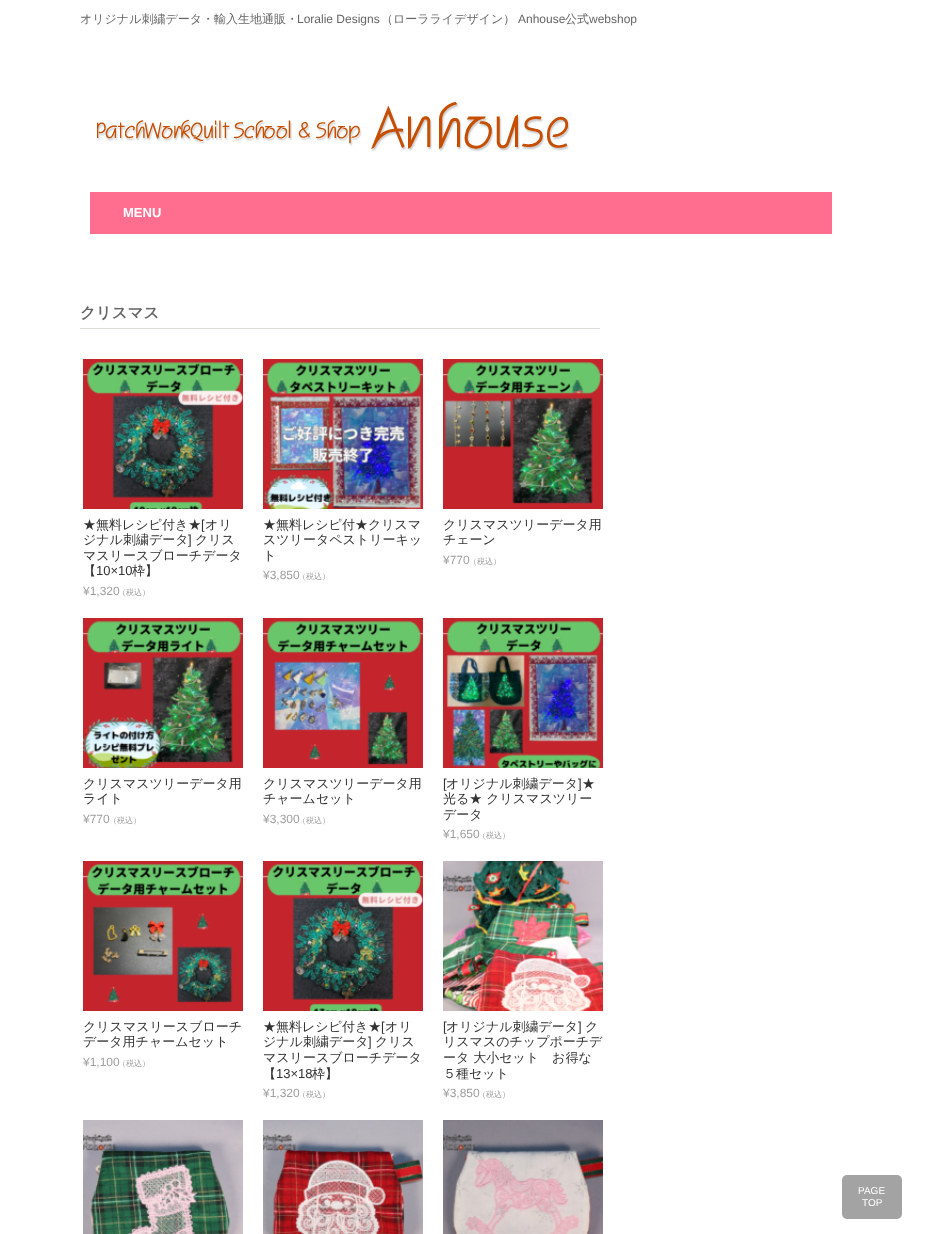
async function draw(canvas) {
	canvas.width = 927;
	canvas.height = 1234;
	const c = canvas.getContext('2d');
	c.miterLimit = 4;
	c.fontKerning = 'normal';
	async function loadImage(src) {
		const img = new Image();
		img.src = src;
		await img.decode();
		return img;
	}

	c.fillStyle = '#fff';
	c.fillRect(0, 0, 927, 1234);
	c.font = '500 12px WenQuanYi Zen Hei';
	c.fillStyle = '#666';
	c.fillText('オリジナル刺繍データ・輸入生地通販・', 80, 23);
	c.font = '12px Liberation Sans';
	c.fillText('Loralie Designs', 297, 23);
	c.font = '500 12px WenQuanYi Zen Hei';
	c.fillText('（ローラライデザイン）', 381, 23);
	c.font = '12px Liberation Sans';
	c.fillText('Anhouse', 518, 23);
	c.font = '500 12px WenQuanYi Zen Hei';
	c.fillText('公式', 565, 23);
	c.font = '12px Liberation Sans';
	c.fillText('webshop', 589, 23);
	c.drawImage(await loadImage('img1.png'), 97, 102, 473, 50);
	c.fillStyle = '#ff6e8f';
	c.fillRect(90, 192, 742, 42);
	c.font = 'bold 13px Liberation Sans';
	c.fillStyle = '#fff';
	c.fillText('MENU', 123, 217);
	c.fillStyle = '#ddddd7';
	c.fillRect(80, 328, 520, 1);
	c.font = 'bold 15.5px WenQuanYi Zen Hei';
	c.fillStyle = '#666';
	c.fillText('クリスマス', 80, 318);
	c.drawImage(await loadImage('img2.png'), 83, 359, 160, 150);
	c.font = '500 13px WenQuanYi Zen Hei';
	c.fillStyle = '#333';
	c.fillText('★無料レシピ付き★ オリ', 83, 529);
	c.font = '13px Liberation Sans';
	c.fillText('[', 201, 529);
	c.font = '500 13px WenQuanYi Zen Hei';
	c.fillText('ジナル刺繍データ', 83, 544);
	c.font = '13px Liberation Sans';
	c.fillText(']', 188, 544);
	c.font = '500 13px WenQuanYi Zen Hei';
	for (const [text, x, y] of [
		['クリス', 195, 544],
		['マスリースブローチデータ', 83, 560],
		['【', 83, 575],
	]) {
		c.fillText(text, x, y);
	}
	c.font = '13px Liberation Sans';
	c.fillText('10×10', 96, 575);
	c.font = '500 13px WenQuanYi Zen Hei';
	c.fillText('枠】', 132, 575);
	c.font = '12px Liberation Sans';
	c.fillStyle = '#9e9e9e';
	c.fillText('¥1,320', 83, 595);
	c.font = '500 8px WenQuanYi Zen Hei';
	c.fillText('（税込）', 118, 595);
	c.drawImage(await loadImage('img3.png'), 263, 359, 160, 150);
	c.font = '500 13px WenQuanYi Zen Hei';
	c.fillStyle = '#333';
	for (const [text, x, y] of [
		['★無料レシピ付★クリスマ', 263, 529],
		['スツリータペストリーキッ', 263, 544],
		['ト', 263, 560],
	]) {
		c.fillText(text, x, y);
	}
	c.font = '12px Liberation Sans';
	c.fillStyle = '#9e9e9e';
	c.fillText('¥3,850', 263, 579);
	c.font = '500 8px WenQuanYi Zen Hei';
	c.fillText('（税込）', 298, 579);
	c.drawImage(await loadImage('img4.png'), 443, 359, 160, 150);
	c.font = '500 13px WenQuanYi Zen Hei';
	c.fillStyle = '#333';
	c.fillText('クリスマスツリーデータ用', 443, 529);
	c.fillText('チェーン', 443, 544);
	c.font = '12px Liberation Sans';
	c.fillStyle = '#9e9e9e';
	c.fillText('¥770', 443, 564);
	c.font = '500 8px WenQuanYi Zen Hei';
	c.fillText('（税込）', 469, 564);
	c.drawImage(await loadImage('img5.png'), 83, 618, 160, 150);
	c.font = '500 13px WenQuanYi Zen Hei';
	c.fillStyle = '#333';
	c.fillText('クリスマスツリーデータ用', 83, 788);
	c.fillText('ライト', 83, 803);
	c.font = '12px Liberation Sans';
	c.fillStyle = '#9e9e9e';
	c.fillText('¥770', 83, 823);
	c.font = '500 8px WenQuanYi Zen Hei';
	c.fillText('（税込）', 109, 823);
	c.drawImage(await loadImage('img6.png'), 263, 618, 160, 150);
	c.font = '500 13px WenQuanYi Zen Hei';
	c.fillStyle = '#333';
	c.fillText('クリスマスツリーデータ用', 263, 788);
	c.fillText('チャームセット', 263, 803);
	c.font = '12px Liberation Sans';
	c.fillStyle = '#9e9e9e';
	c.fillText('¥3,300', 263, 823);
	c.font = '500 8px WenQuanYi Zen Hei';
	c.fillText('（税込）', 298, 823);
	c.drawImage(await loadImage('img7.png'), 443, 618, 160, 150);
	c.font = '13px Liberation Sans';
	c.fillStyle = '#333';
	c.fillText('[', 443, 788);
	c.font = '500 13px WenQuanYi Zen Hei';
	c.fillText('オリジナル刺繍データ ★', 446, 788);
	c.font = '13px Liberation Sans';
	c.fillText(']', 578, 788);
	c.font = '500 13px WenQuanYi Zen Hei';
	c.fillText('光る★ クリスマスツリー', 443, 803);
	c.fillText('データ', 443, 819);
	c.font = '12px Liberation Sans';
	c.fillStyle = '#9e9e9e';
	c.fillText('¥1,650', 443, 838);
	c.font = '500 8px WenQuanYi Zen Hei';
	c.fillText('（税込）', 478, 838);
	c.drawImage(await loadImage('img8.png'), 83, 861, 160, 150);
	c.font = '500 13px WenQuanYi Zen Hei';
	c.fillStyle = '#333';
	c.fillText('クリスマスリースブローチ', 83, 1031);
	c.fillText('データ用チャームセット', 83, 1046);
	c.font = '12px Liberation Sans';
	c.fillStyle = '#9e9e9e';
	c.fillText('¥1,100', 83, 1066);
	c.font = '500 8px WenQuanYi Zen Hei';
	c.fillText('（税込）', 118, 1066);
	c.drawImage(await loadImage('img9.png'), 263, 861, 160, 150);
	c.font = '500 13px WenQuanYi Zen Hei';
	c.fillStyle = '#333';
	c.fillText('★無料レシピ付き★ オリ', 263, 1031);
	c.font = '13px Liberation Sans';
	c.fillText('[', 381, 1031);
	c.font = '500 13px WenQuanYi Zen Hei';
	c.fillText('ジナル刺繍データ', 263, 1046);
	c.font = '13px Liberation Sans';
	c.fillText(']', 368, 1046);
	c.font = '500 13px WenQuanYi Zen Hei';
	for (const [text, x, y] of [
		['クリス', 375, 1046],
		['マスリースブローチデータ', 263, 1062],
		['【', 263, 1078],
	]) {
		c.fillText(text, x, y);
	}
	c.font = '13px Liberation Sans';
	c.fillText('13×18', 276, 1078);
	c.font = '500 13px WenQuanYi Zen Hei';
	c.fillText('枠】', 312, 1078);
	c.font = '12px Liberation Sans';
	c.fillStyle = '#9e9e9e';
	c.fillText('¥1,320', 263, 1097);
	c.font = '500 8px WenQuanYi Zen Hei';
	c.fillText('（税込）', 298, 1097);
	c.drawImage(await loadImage('img10.png'), 443, 861, 160, 150);
	c.font = '13px Liberation Sans';
	c.fillStyle = '#333';
	c.fillText('[', 443, 1031);
	c.font = '500 13px WenQuanYi Zen Hei';
	c.fillText('オリジナル刺繍データ', 446, 1031);
	c.font = '13px Liberation Sans';
	c.fillText(']', 578, 1031);
	c.font = '500 13px WenQuanYi Zen Hei';
	for (const [text, x, y] of [
		['ク', 585, 1031],
		['リスマスのチップポーチデ', 443, 1046],
		['ータ 大小セット　お得な', 443, 1062],
		['５種セット', 443, 1078],
	]) {
		c.fillText(text, x, y);
	}
	c.font = '12px Liberation Sans';
	c.fillStyle = '#9e9e9e';
	c.fillText('¥3,850', 443, 1097);
	c.font = '500 8px WenQuanYi Zen Hei';
	c.fillText('（税込）', 478, 1097);
	c.drawImage(await loadImage('img11.png'), 83, 1120, 160, 114);
	c.drawImage(await loadImage('img12.png'), 263, 1120, 160, 114);
	c.drawImage(await loadImage('img13.png'), 443, 1120, 160, 114);
	c.fillStyle = '#a3a3a3';
	c.beginPath();
	c.roundRect(842, 1175, 60, 44, 5);
	c.fill();
	c.font = '10px Liberation Sans';
	c.fillStyle = '#fff';
	c.fillText('PAGE', 858, 1194);
	c.fillText('TOP', 862, 1206);
}

draw(document.querySelector('canvas'));
